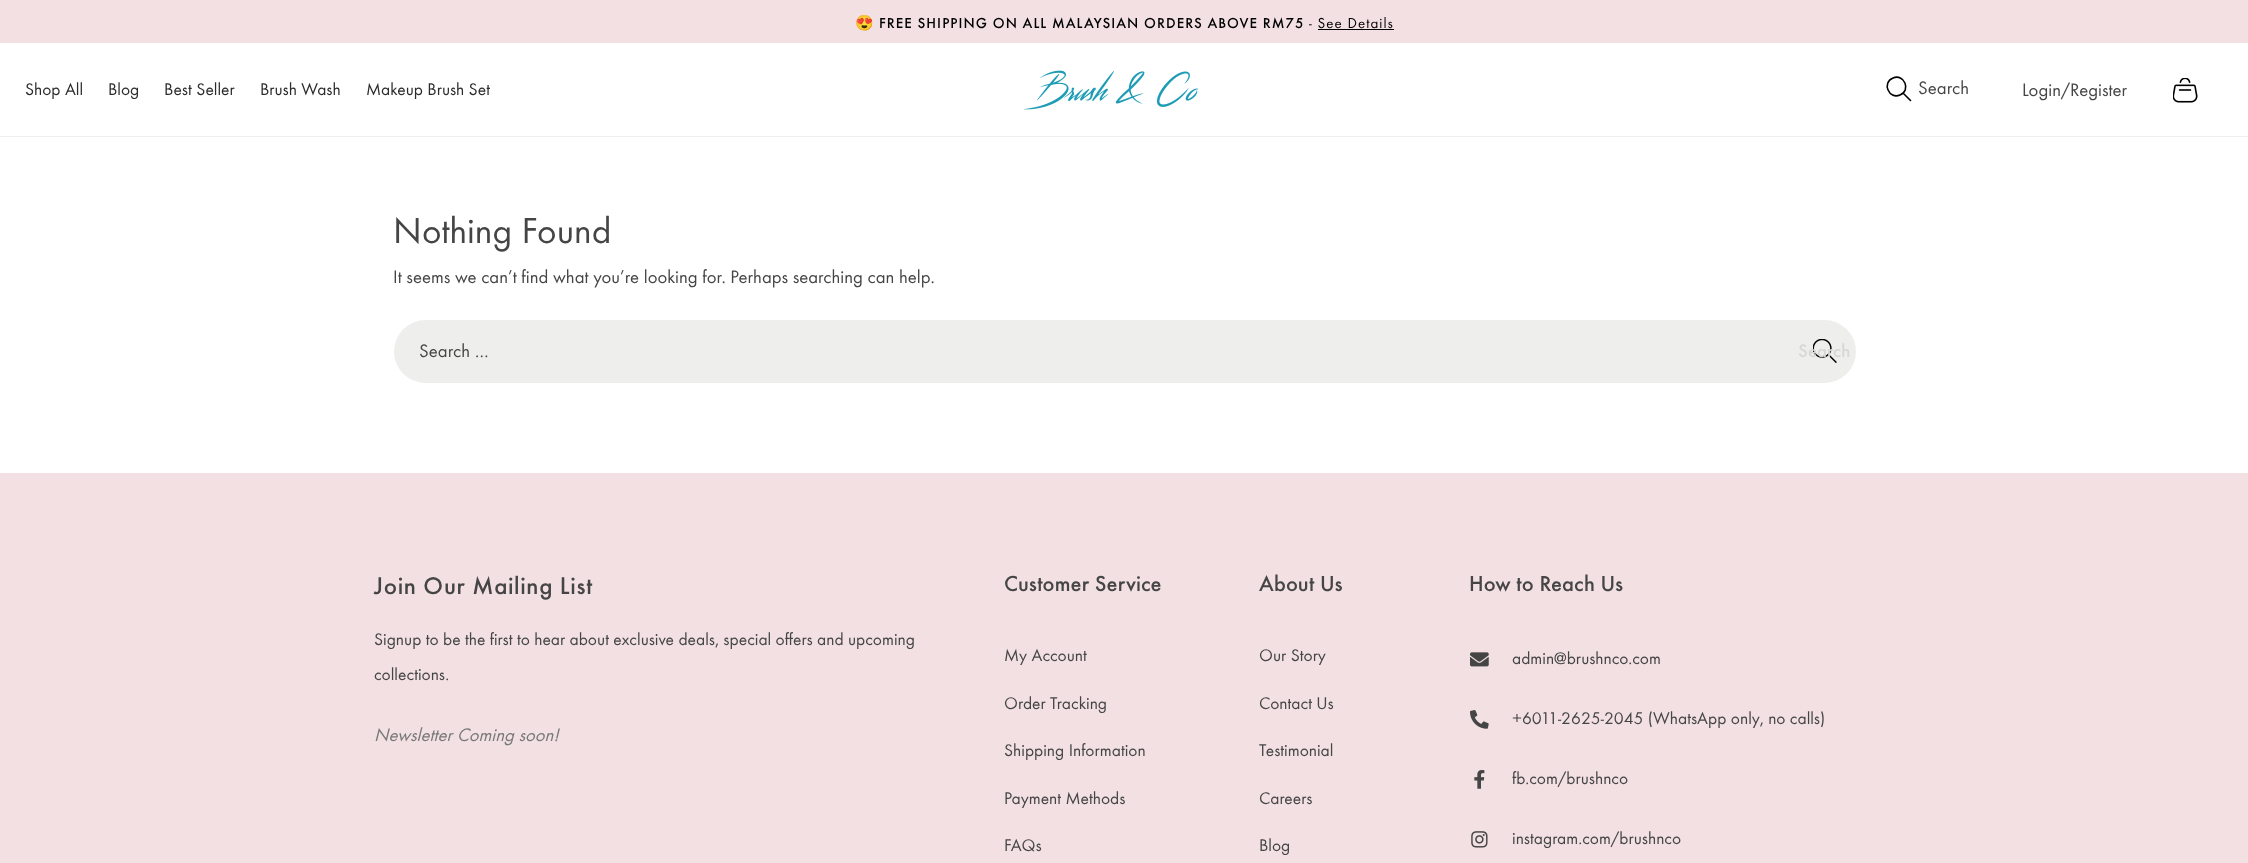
async function draw(canvas) {
	canvas.width = 2248;
	canvas.height = 863;
	const c = canvas.getContext('2d');
	c.miterLimit = 4;
	c.fontKerning = 'normal';
	async function loadImage(src) {
		const img = new Image();
		img.src = src;
		await img.decode();
		return img;
	}

	c.fillStyle = '#fff';
	c.fillRect(0, 0, 2248, 863);
	c.fillStyle = '#f2e0e2';
	c.fillRect(0, 0, 2248, 43);
	c.letterSpacing = '1px';
	c.font = '15px Noto Color Emoji';
	c.fillStyle = '#000';
	c.fillText('😍', 855, 28);
	c.font = '500 15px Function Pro';
	c.fillText('FREE SHIPPING ON ALL MALAYSIAN ORDERS ABOVE RM75', 879, 28);
	c.font = '15px Function Pro';
	c.fillText('- See Details', 1309, 28);
	c.fillRect(1318, 29, 76, 1);
	c.fillStyle = '#eee';
	c.fillRect(0, 136, 2248, 1);
	c.letterSpacing = '0px';
	c.font = '17.5px Function Pro';
	c.fillStyle = '#2b2b2b';
	for (const [text, x, y] of [
		['Shop All', 25, 95],
		['Blog', 108, 95],
		['Best Seller', 164, 95],
		['Brush Wash', 260, 95],
		['Makeup Brush Set', 366, 95],
	]) {
		c.fillText(text, x, y);
	}
	c.drawImage(await loadImage('img1.png'), 1024, 70, 175, 40);
	c.beginPath();
	c.moveTo(1893, 78);
	c.bezierCurveTo(1904, 73, 1911.5, 90.5, 1900, 95);
	c.bezierCurveTo(1889, 100, 1881.5, 82.5, 1893, 78);
	c.closePath();
	c.moveTo(1903, 93);
	c.lineTo(1910.5, 100.5);
	c.strokeStyle = '#000';
	c.lineWidth = 1.6;
	c.lineCap = 'round';
	c.lineJoin = 'round';
	c.stroke();
	c.font = '18.75px Function Pro';
	c.fillStyle = '#454545';
	c.fillText('Search', 1918, 94);
	c.fillText('Login/Register', 2022, 96);
	c.drawImage(await loadImage('img2.png'), 2173, 78, 25, 25);
	c.font = '37.5px Function Pro';
	c.fillText('Nothing Found', 393, 243);
	c.font = '18.75px Function Pro';
	c.fillText('It seems we can’t find what you’re looking for. Perhaps searching can help.', 393, 283);
	c.fillStyle = '#eeeeec';
	c.beginPath();
	c.roundRect(394, 320, 1462, 63, 31.5);
	c.fill();
	c.fillStyle = '#454545';
	c.fillText('Search …', 419, 357);
	c.drawImage(await loadImage('img3.png'), 1813, 339, 24, 24);
	c.font = '500 18.75px Function Pro';
	c.fillStyle = '#d7d7d5';
	c.fillText('Search', 1798, 357);
	c.fillStyle = '#f2e0e2';
	c.fillRect(0, 473, 2248, 390);
	c.letterSpacing = '0.6px';
	c.font = '500 25px Function Pro';
	c.fillStyle = '#454545';
	c.fillText('Join Our Mailing List', 374, 594);
	c.letterSpacing = '0px';
	c.font = '17.5px Function Pro';
	c.fillText('Signup to be the first to hear about exclusive deals, special offers and upcoming', 374, 645);
	c.fillText('collections.', 374, 680);
	c.font = 'italic 18.75px Function Pro';
	c.fillStyle = '#787878';
	c.fillText('Newsletter Coming soon!', 374, 741);
	c.font = '500 22.5px Function Pro';
	c.fillStyle = '#454545';
	c.fillText('Customer Service', 1004, 591);
	c.font = '17.5px Function Pro';
	for (const [text, x, y] of [
		['My Account', 1004, 661],
		['Order Tracking', 1004, 709],
		['Shipping Information', 1004, 756],
		['Payment Methods', 1004, 804],
		['FAQs', 1004, 851],
	]) {
		c.fillText(text, x, y);
	}
	c.font = '500 22.5px Function Pro';
	c.fillText('About Us', 1259, 591);
	c.font = '17.5px Function Pro';
	for (const [text, x, y] of [
		['Our Story', 1259, 661],
		['Contact Us', 1259, 709],
		['Testimonial', 1259, 756],
		['Careers', 1259, 804],
		['Blog', 1259, 851],
	]) {
		c.fillText(text, x, y);
	}
	c.font = '500 22.5px Function Pro';
	c.fillText('How to Reach Us', 1469, 591);
	c.drawImage(await loadImage('img4.png'), 1470, 652, 19, 15);
	c.font = '17.5px Function Pro';
	c.fillText('admin@brushnco.com', 1512, 664);
	c.drawImage(await loadImage('img5.png'), 1470, 710, 19, 19);
	c.fillText('+6011-2625-2045 (WhatsApp only, no calls)', 1512, 724);
	c.drawImage(await loadImage('img6.png'), 1474, 770, 11, 19);
	c.fillText('fb.com/brushnco', 1512, 784);
	c.drawImage(await loadImage('img7.png'), 1471, 831, 17, 17);
	c.fillText('instagram.com/brushnco', 1512, 844);
}

draw(document.querySelector('canvas'));
